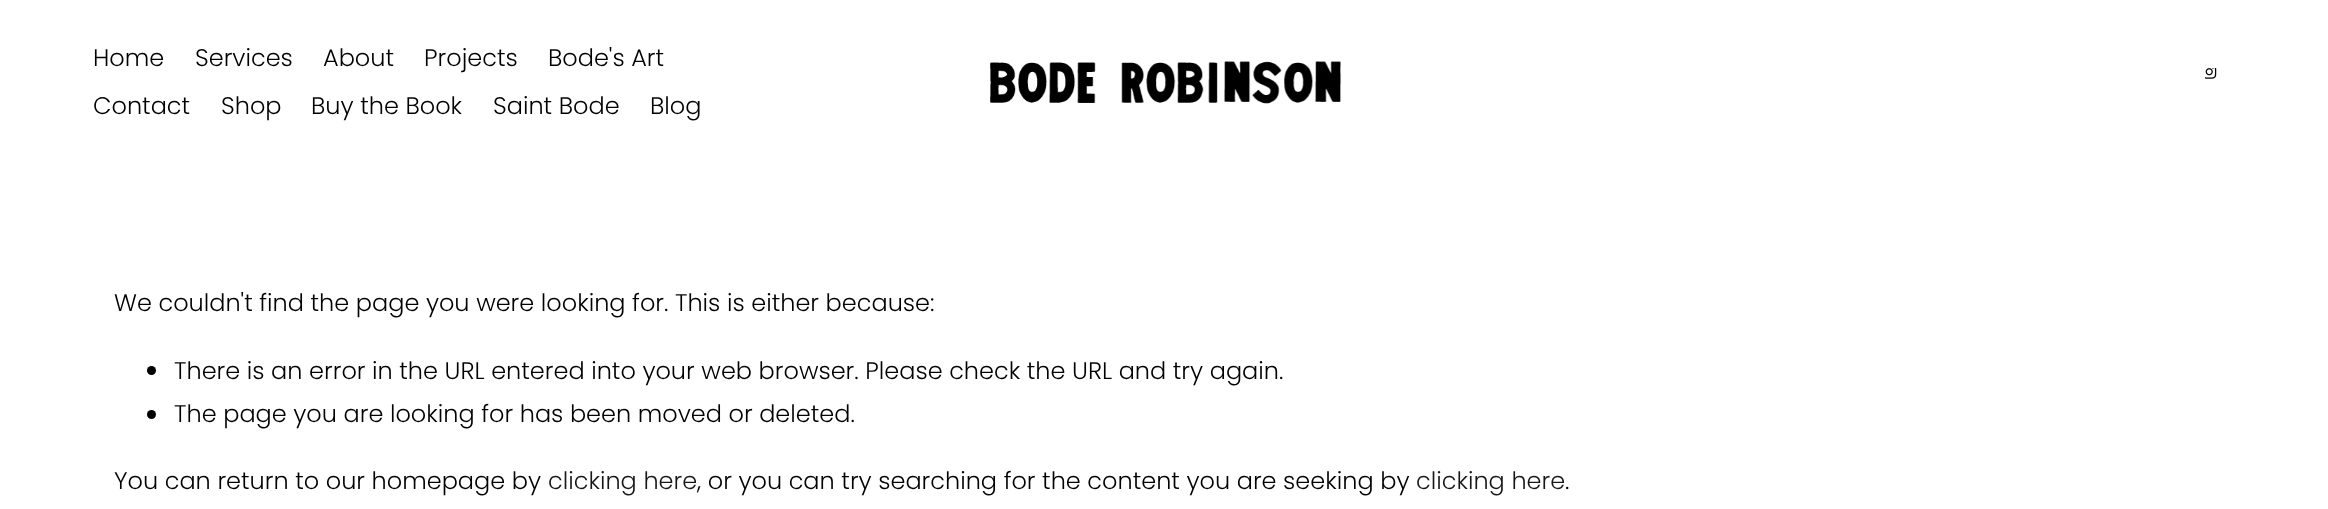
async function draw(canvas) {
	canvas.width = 2328;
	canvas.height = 509;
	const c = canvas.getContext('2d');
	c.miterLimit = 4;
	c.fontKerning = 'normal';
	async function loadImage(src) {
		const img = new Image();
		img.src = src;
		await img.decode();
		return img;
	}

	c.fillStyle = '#fff';
	c.fillRect(0, 0, 2328, 509);
	c.font = '300 24px Poppins';
	c.fillStyle = '#000';
	for (const [text, x, y] of [
		['Home', 93, 66],
		['Services', 195, 66],
		['About', 323, 66],
		['Projects', 424, 66],
		['Bode\'s Art', 548, 66],
		['Contact', 93, 114],
		['Shop', 221, 114],
		['Buy the Book', 311, 114],
		['Saint Bode', 493, 114],
		['Blog', 650, 114],
	]) {
		c.fillText(text, x, y);
	}
	c.drawImage(await loadImage('img1.png'), 990, 61, 351, 43);
	c.drawImage(await loadImage('img2.png'), 2205, 68, 12, 11);
	c.fillText('We couldn\'t find the page you were looking for. This is either because:', 114, 311);
	c.beginPath();
	c.arc(151.5, 370.5, 4.5, 0, 2 * Math.PI);
	c.fill();
	c.fillText('There is an error in the URL entered into your web browser. Please check the URL and try again.', 174, 379);
	c.beginPath();
	c.arc(151.5, 414.5, 4.5, 0, 2 * Math.PI);
	c.fill();
	c.fillText('The page you are looking for has been moved or deleted.', 174, 422);
	c.fillText('You can return to our homepage by', 114, 489);
	c.fillStyle = '#171717';
	c.fillText('clicking here', 548, 489);
	c.fillStyle = '#000';
	c.fillText(', or you can try searching for the content you are seeking by', 697, 489);
	c.fillStyle = '#171717';
	c.fillText('clicking here', 1416, 489);
	c.fillStyle = '#000';
	c.fillText('.', 1565, 489);
}

draw(document.querySelector('canvas'));
